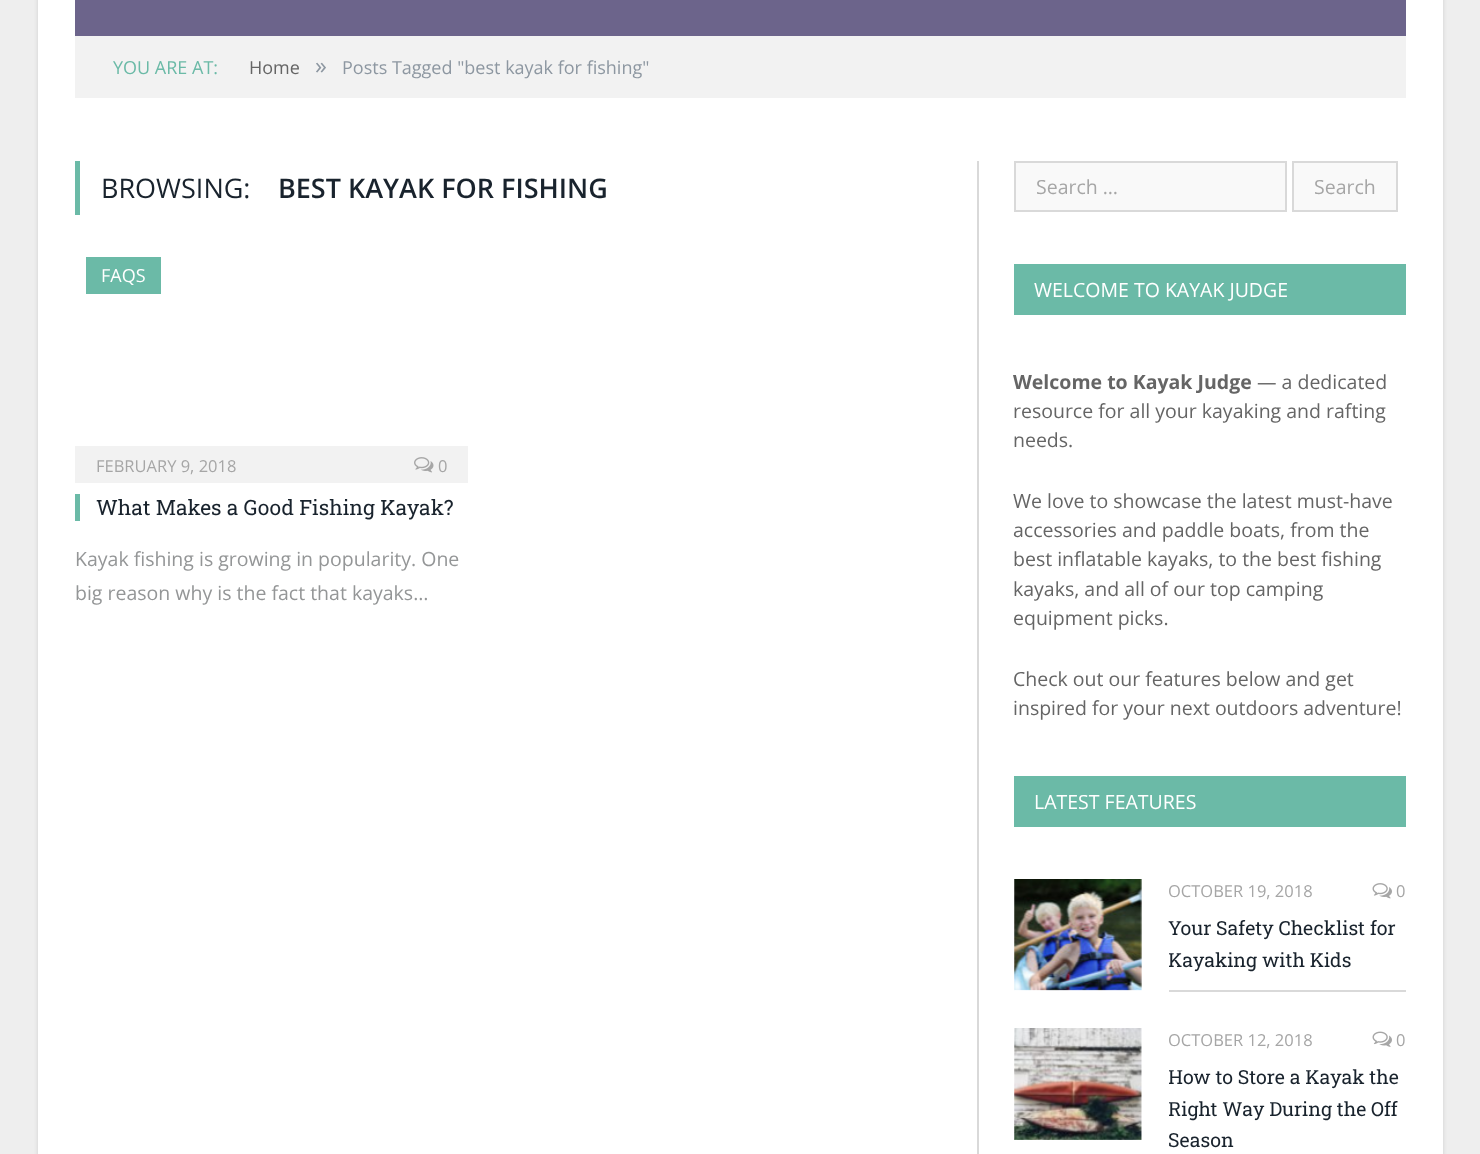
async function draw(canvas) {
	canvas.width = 1480;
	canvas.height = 1154;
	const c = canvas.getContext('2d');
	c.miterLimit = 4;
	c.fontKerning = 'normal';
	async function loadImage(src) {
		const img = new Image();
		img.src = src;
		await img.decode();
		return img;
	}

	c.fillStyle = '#eee';
	c.fillRect(0, 0, 1480, 1154);
	c.fillStyle = '#0000001f';
	c.filter = 'blur(2px)';
	c.beginPath();
	c.rect(38, -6, 1405, 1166);
	c.fill();
	c.filter = 'none';
	for (const [x, y, w, h, color] of [
		[38, 0, 1405, 1154, '#fff'],
		[75, 0, 1331, 36, '#6c648b'],
		[75, 36, 1331, 62, '#f2f2f2'],
	]) {
		c.fillStyle = color;
		c.fillRect(x, y, w, h);
	}
	c.font = '18px Open Sans';
	c.fillStyle = '#6bbaa7';
	c.fillText('YOU ARE AT:', 113, 74);
	c.fillStyle = '#656565';
	c.fillText('Home', 249, 74);
	c.font = '24px Open Sans';
	c.fillStyle = '#8d97a1';
	c.fillText('»', 315, 74);
	c.font = '18px Open Sans';
	c.fillText('Posts Tagged "best kayak for fishing"', 342, 74);
	c.fillStyle = '#6bbaa7';
	c.fillRect(75, 161, 5, 54);
	c.font = '27px Open Sans';
	c.fillStyle = '#19232d';
	c.fillText('BROWSING:', 101, 198);
	c.font = '600 27px Open Sans';
	c.fillText('BEST KAYAK FOR FISHING', 278, 198);
	c.fillStyle = '#6bbaa7';
	c.fillRect(86, 257, 75, 37);
	c.font = '18px Open Sans';
	c.fillStyle = '#fff';
	c.fillText('FAQS', 101, 282);
	c.fillStyle = '#f2f2f2';
	c.fillRect(75, 446, 393, 37);
	c.font = '16.5px Open Sans';
	c.fillStyle = '#a6a6a6';
	c.fillText('FEBRUARY 9, 2018', 96, 472);
	c.drawImage(await loadImage('img1.png'), 414, 457, 20, 16);
	c.fillText('0', 438, 472);
	c.fillStyle = '#6bbaa7';
	c.fillRect(75, 494, 5, 27);
	c.font = '21px Roboto Slab';
	c.fillStyle = '#19232d';
	c.fillText('What Makes a Good Fishing Kayak?', 96, 515);
	c.font = '19.5px Open Sans';
	c.fillStyle = '#949697';
	c.fillText('Kayak fishing is growing in popularity. One', 75, 566);
	c.fillText('big reason why is the fact that kayaks…', 75, 600);
	c.fillStyle = '#d9d9d9';
	c.fillRect(977, 161, 2, 993);
	c.fillStyle = '#f9f9f9';
	c.beginPath();
	c.rect(1015, 162, 271, 49);
	c.fill();
	c.strokeStyle = '#d9d9d9';
	c.lineWidth = 2;
	c.stroke();
	c.fillStyle = '#a6a6a6';
	c.fillText('Search …', 1036, 194);
	c.fillStyle = '#f9f9f9';
	c.beginPath();
	c.rect(1293, 162, 104, 49);
	c.fill();
	c.stroke();
	c.fillStyle = '#a6a6a6';
	c.fillText('Search', 1314, 194);
	c.fillStyle = '#6bbaa7';
	c.fillRect(1014, 264, 392, 51);
	c.fillStyle = '#fff';
	c.fillText('WELCOME TO KAYAK JUDGE', 1034, 297);
	c.font = 'bold 19.5px Open Sans';
	c.fillStyle = '#656565';
	c.fillText('Welcome to Kayak Judge', 1013, 389);
	c.font = '19.5px Open Sans';
	for (const [text, x, y] of [
		['— a dedicated', 1257, 389],
		['resource for all your kayaking and rafting', 1013, 418],
		['needs.', 1013, 447],
		['We love to showcase the latest must-have', 1013, 508],
		['accessories and paddle boats, from the', 1013, 537],
		['best inflatable kayaks, to the best fishing', 1013, 566],
		['kayaks, and all of our top camping', 1013, 596],
		['equipment picks.', 1013, 625],
		['Check out our features below and get', 1013, 686],
		['inspired for your next outdoors adventure!', 1013, 715],
	]) {
		c.fillText(text, x, y);
	}
	c.fillStyle = '#6bbaa7';
	c.fillRect(1014, 776, 392, 51);
	c.fillStyle = '#fff';
	c.fillText('LATEST FEATURES', 1034, 809);
	c.drawImage(await loadImage('img2.png'), 1014, 879, 128, 112);
	c.fillStyle = '#d9d9d9';
	c.fillRect(1169, 990, 237, 2);
	c.font = '16.5px Open Sans';
	c.fillStyle = '#a6a6a6';
	c.fillText('OCTOBER 19, 2018', 1168, 897);
	c.drawImage(await loadImage('img3.png'), 1372, 883, 20, 16);
	c.fillText('0', 1396, 897);
	c.font = '19.5px Roboto Slab';
	c.fillStyle = '#19232d';
	c.fillText('Your Safety Checklist for', 1168, 935);
	c.save();
	c.beginPath();
	c.rect(1169, 879, 237, 111);
	c.clip();
	c.fillText('Kayaking with Kids', 1168, 967);
	c.restore();
	c.drawImage(await loadImage('img4.png'), 1014, 1028, 128, 112);
	c.font = '16.5px Open Sans';
	c.fillStyle = '#a6a6a6';
	c.fillText('OCTOBER 12, 2018', 1168, 1046);
	c.drawImage(await loadImage('img5.png'), 1372, 1031, 20, 16);
	c.fillText('0', 1396, 1046);
	c.save();
	c.beginPath();
	c.rect(1169, 1028, 237, 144);
	c.clip();
	c.font = '19.5px Roboto Slab';
	c.fillStyle = '#19232d';
	c.fillText('How to Store a Kayak the', 1168, 1084);
	c.fillText('Right Way During the Off', 1168, 1116);
	c.restore();
	c.font = '19.5px Roboto Slab';
	c.fillStyle = '#19232d';
	c.fillText('Season', 1168, 1147);
}

draw(document.querySelector('canvas'));
